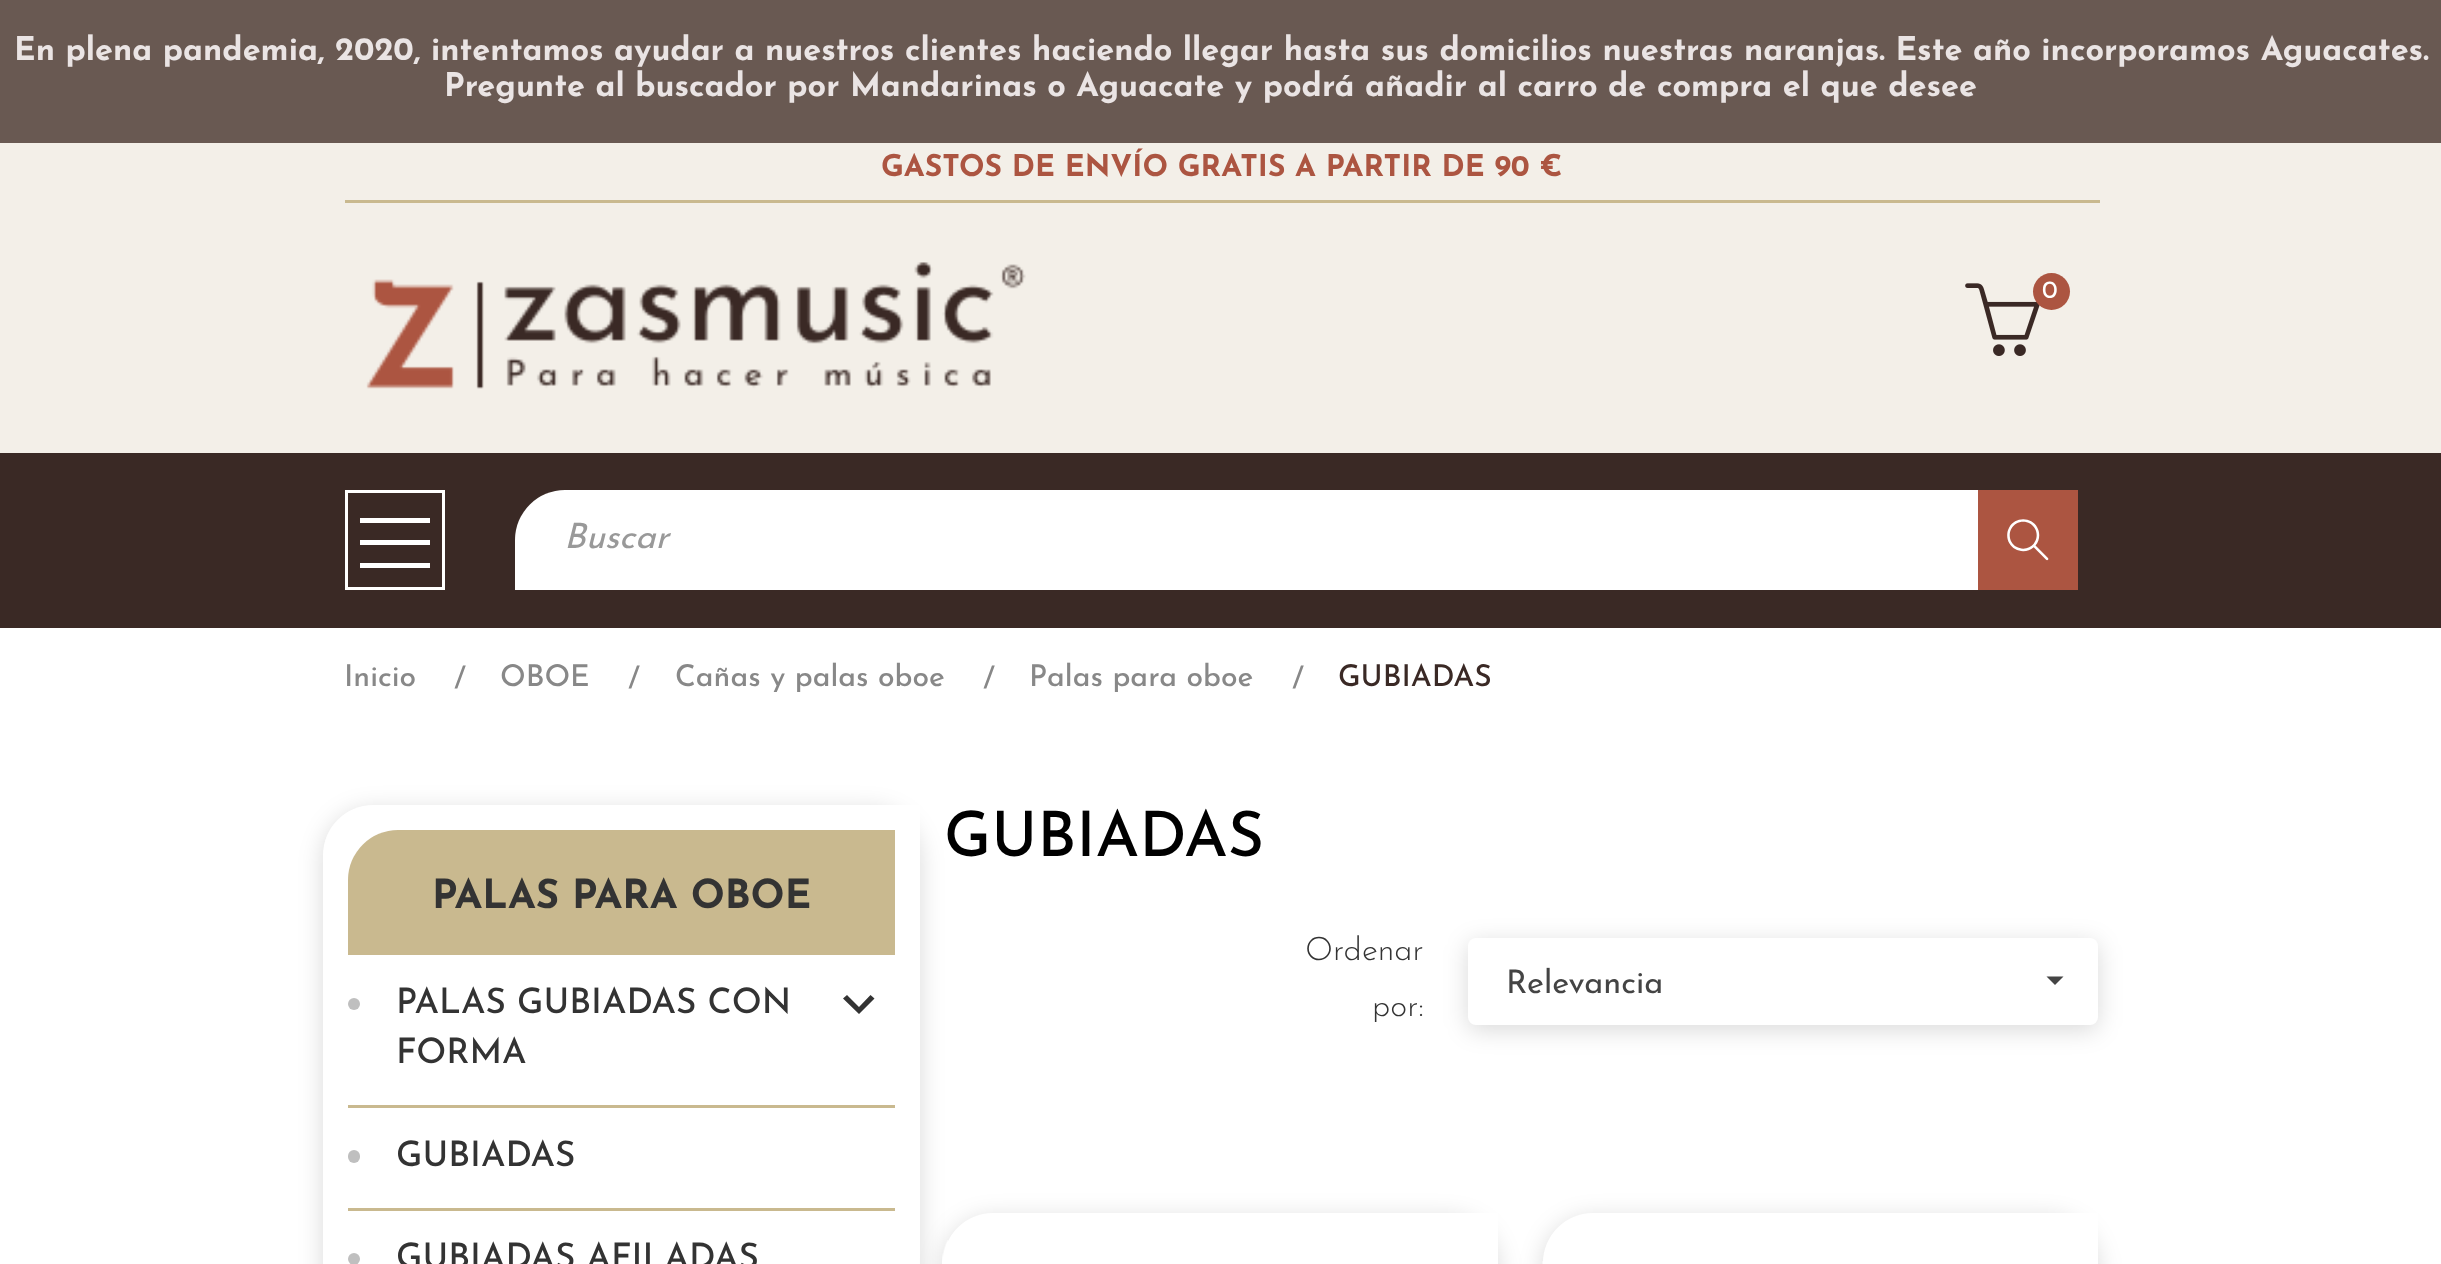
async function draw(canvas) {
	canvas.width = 2441;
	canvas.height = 1264;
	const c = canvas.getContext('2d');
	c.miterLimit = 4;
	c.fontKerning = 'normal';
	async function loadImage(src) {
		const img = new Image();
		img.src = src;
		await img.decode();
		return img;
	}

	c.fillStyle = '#fff';
	c.fillRect(0, 0, 2441, 1264);
	c.fillStyle = '#695952';
	c.fillRect(0, 0, 2441, 143);
	c.font = 'bold 32.5px Josefin Sans';
	c.fillStyle = '#eae4e4';
	c.fillText('En plena pandemia, 2020, intentamos ayudar a nuestros clientes haciendo llegar hasta sus domicilios nuestras naranjas. Este año incorporamos Aguacates.', 14, 60);
	c.fillText('Pregunte al buscador por Mandarinas o Aguacate y podrá añadir al carro de compra el que desee', 444, 96);
	c.fillStyle = '#f3efe8';
	c.fillRect(0, 143, 2441, 310);
	c.fillStyle = '#c9b98f';
	c.fillRect(345, 200, 1755, 3);
	c.font = 'bold 30px Josefin Sans';
	c.fillStyle = '#ac5541';
	c.fillText('GASTOS DE ENVÍO GRATIS A PARTIR DE 90 €', 881, 176);
	c.drawImage(await loadImage('img1.png'), 366, 262, 660, 127);
	c.drawImage(await loadImage('img2.png'), 1965, 283, 75, 73);
	c.beginPath();
	c.arc(2051.5, 291.5, 18.5, 0, 2 * Math.PI);
	c.fill();
	c.font = '25px Josefin Sans';
	c.fillStyle = '#fff';
	c.fillText('0', 2042, 298);
	c.fillStyle = '#3a2925';
	c.fillRect(0, 453, 2441, 175);
	c.fillStyle = '#fff';
	c.beginPath();
	c.roundRect(515, 490, 1563, 100, [50, 0, 0, 0]);
	c.fill();
	c.font = 'italic 35px Josefin Sans';
	c.fillStyle = '#999';
	c.fillText('Buscar', 564, 548);
	c.fillStyle = '#ac5541';
	c.fillRect(1978, 490, 100, 100);
	c.drawImage(await loadImage('img3.png'), 2007, 519, 42, 42);
	c.strokeStyle = '#fff';
	c.lineWidth = 3;
	c.strokeRect(346.5, 491.5, 97, 97);
	for (const [x, y, w, h, color] of [
		[360, 518, 70, 5, '#fff'],
		[360, 540, 70, 5, '#fff'],
		[360, 563, 70, 5, '#fff'],
	]) {
		c.fillStyle = color;
		c.fillRect(x, y, w, h);
	}
	c.font = '500 30px Josefin Sans';
	c.fillStyle = '#888';
	for (const [text, x, y] of [
		['Inicio', 344, 686],
		['/', 454, 688],
		['OBOE', 500, 686],
		['/', 628, 688],
		['Cañas y palas oboe', 675, 686],
		['/', 983, 688],
		['Palas para oboe', 1029, 686],
		['/', 1292, 688],
	]) {
		c.fillText(text, x, y);
	}
	c.fillStyle = '#3a2925';
	c.fillText('GUBIADAS', 1338, 686);
	c.fillStyle = '#00000026';
	c.filter = 'blur(12.5px)';
	c.beginPath();
	c.roundRect(323, 810, 597, 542, 50);
	c.fill();
	c.filter = 'none';
	c.fillStyle = '#fff';
	c.beginPath();
	c.moveTo(373, 805);
	c.lineTo(920, 805);
	c.lineTo(920, 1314);
	c.lineTo(323, 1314);
	c.lineTo(323, 855);
	c.bezierCurveTo(323, 827.5, 345.5, 805, 373, 805);
	c.closePath();
	c.fill();
	c.fillStyle = '#c9b98f';
	c.beginPath();
	c.roundRect(348, 830, 547, 125, [50, 0, 0, 0]);
	c.fill();
	c.font = 'bold 40px Josefin Sans';
	c.fillStyle = '#333';
	c.fillText('PALAS PARA OBOE', 432, 908);
	c.fillStyle = '#c9b98f';
	c.fillRect(348, 1105, 547, 3);
	c.fillStyle = '#bfbfbf';
	c.beginPath();
	c.arc(354, 1004, 6, 0, 2 * Math.PI);
	c.fill();
	c.font = '500 35px Josefin Sans';
	c.fillStyle = '#333';
	c.fillText('PALAS GUBIADAS CON', 396, 1013);
	c.fillText('FORMA', 396, 1063);
	c.beginPath();
	c.moveTo(870.5, 995);
	c.lineTo(874.5, 998.5);
	c.lineTo(859, 1014);
	c.lineTo(843, 998.5);
	c.lineTo(847, 995);
	c.lineTo(859, 1007);
	c.closePath();
	c.fill();
	c.fillStyle = '#c9b98f';
	c.fillRect(348, 1208, 547, 3);
	c.fillStyle = '#bfbfbf';
	c.beginPath();
	c.roundRect(348, 1150, 12, 13, 6);
	c.fill();
	c.fillStyle = '#333';
	c.fillText('GUBIADAS', 396, 1166);
	c.fillStyle = '#bfbfbf';
	c.beginPath();
	c.arc(354, 1259, 6, 0, 2 * Math.PI);
	c.fill();
	c.fillStyle = '#333';
	c.fillText('GUBIADAS AFILADAS', 396, 1268);
	c.font = '500 62.5px Josefin Sans';
	c.fillStyle = '#000';
	c.fillText('GUBIADAS', 944, 856);
	c.font = '300 32.5px Josefin Sans';
	c.fillStyle = '#333';
	c.fillText('Ordenar', 1305, 960);
	c.fillText('por:', 1372, 1016);
	c.fillStyle = '#00000026';
	c.filter = 'blur(12.5px)';
	c.beginPath();
	c.roundRect(1468, 943, 630, 87, 8);
	c.fill();
	c.filter = 'none';
	c.fillStyle = '#fff';
	c.beginPath();
	c.roundRect(1468, 938, 630, 87, 8);
	c.fill();
	c.font = '32.5px Josefin Sans';
	c.fillStyle = '#444';
	c.fillText('Relevancia', 1506, 993);
	c.beginPath();
	c.moveTo(2046.5, 976.5);
	c.lineTo(2063.5, 976.5);
	c.lineTo(2055, 985);
	c.closePath();
	c.fill();
	c.save();
	c.beginPath();
	c.moveTo(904, 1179);
	c.lineTo(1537, 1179);
	c.lineTo(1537, 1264);
	c.lineTo(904, 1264);
	c.closePath();
	c.moveTo(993, 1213);
	c.lineTo(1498, 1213);
	c.lineTo(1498, 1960);
	c.lineTo(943, 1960);
	c.lineTo(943, 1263);
	c.bezierCurveTo(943, 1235.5, 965.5, 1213, 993, 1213);
	c.closePath();
	c.clip('evenodd');
	c.fillStyle = '#00000026';
	c.filter = 'blur(12.5px)';
	c.beginPath();
	c.roundRect(943, 1218, 555, 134, 50);
	c.fill();
	c.filter = 'none';
	c.restore();
	c.drawImage(await loadImage('img4.png'), 942, 1240, 6, 24);
	c.save();
	c.beginPath();
	c.moveTo(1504, 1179);
	c.lineTo(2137, 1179);
	c.lineTo(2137, 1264);
	c.lineTo(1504, 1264);
	c.closePath();
	c.moveTo(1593, 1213);
	c.lineTo(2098, 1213);
	c.lineTo(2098, 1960);
	c.lineTo(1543, 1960);
	c.lineTo(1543, 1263);
	c.bezierCurveTo(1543, 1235.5, 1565.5, 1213, 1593, 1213);
	c.closePath();
	c.clip('evenodd');
	c.fillStyle = '#00000026';
	c.filter = 'blur(12.5px)';
	c.beginPath();
	c.roundRect(1543, 1218, 555, 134, 50);
	c.fill();
	c.filter = 'none';
	c.restore();
	c.drawImage(await loadImage('img5.png'), 1542, 1261, 1, 3);
}

draw(document.querySelector('canvas'));
